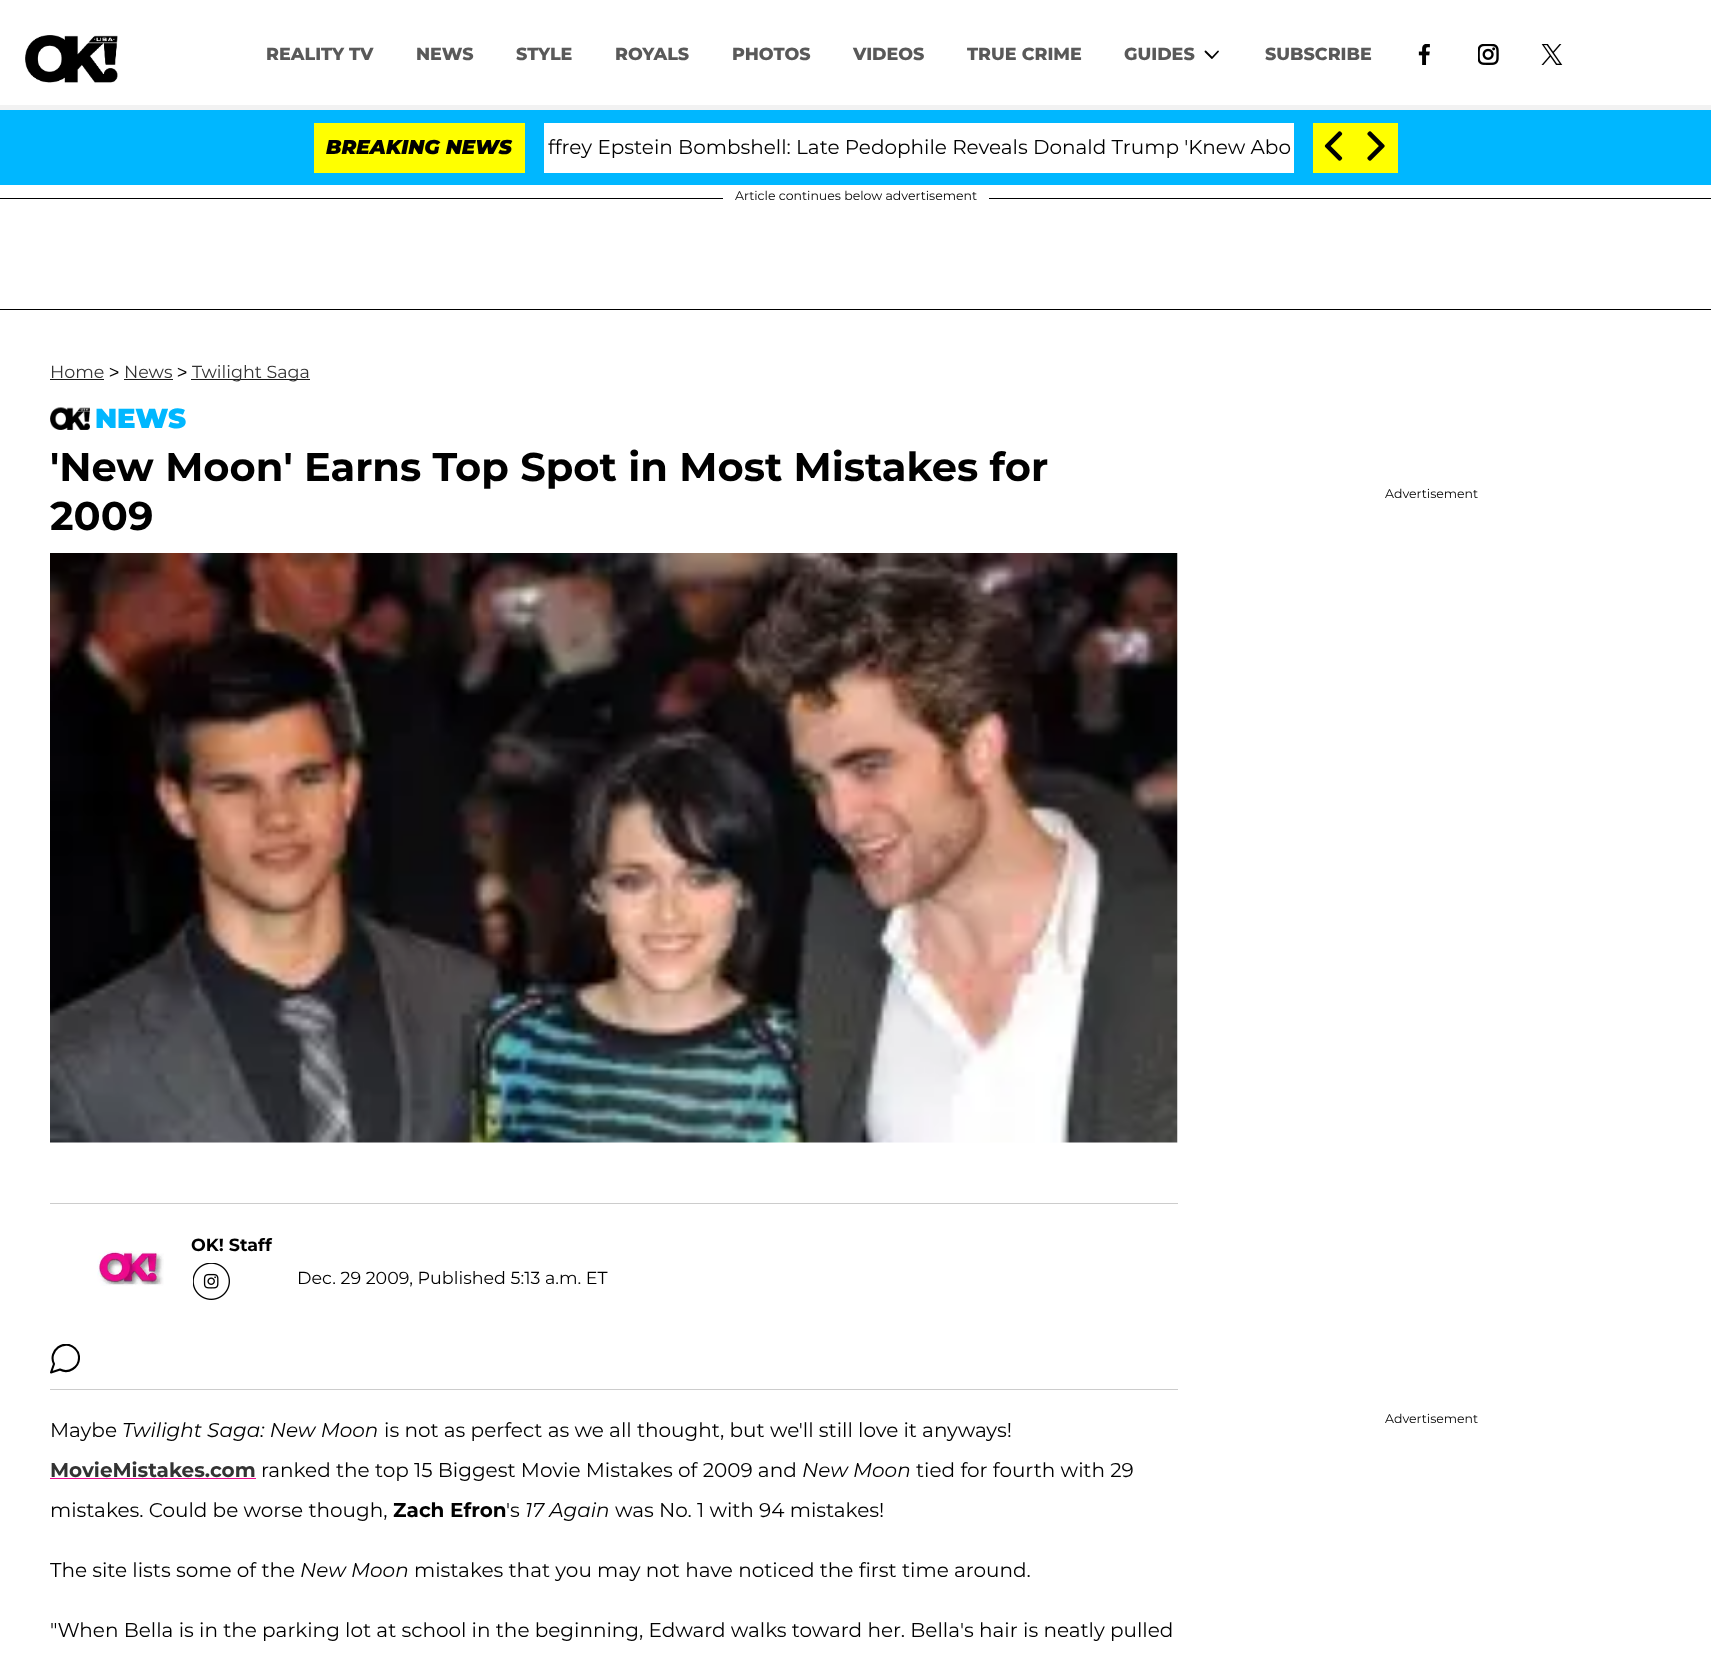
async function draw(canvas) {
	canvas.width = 1711;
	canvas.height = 1656;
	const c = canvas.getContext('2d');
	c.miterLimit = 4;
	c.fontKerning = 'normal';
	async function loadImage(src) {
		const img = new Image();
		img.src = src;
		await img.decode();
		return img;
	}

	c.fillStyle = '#fff';
	c.fillRect(0, 0, 1711, 1656);
	c.fillStyle = '#f2f2f2';
	c.fillRect(0, 105, 1711, 5);
	c.drawImage(await loadImage('img1.png'), 25, 35, 93, 48);
	c.font = '800 17.5px Montserrat';
	c.fillStyle = '#595959';
	for (const [text, x, y] of [
		['REALITY TV', 266, 60],
		['NEWS', 416, 60],
		['STYLE', 516, 60],
		['ROYALS', 615, 60],
		['PHOTOS', 732, 60],
		['VIDEOS', 853, 60],
		['TRUE CRIME', 967, 60],
		['GUIDES', 1124, 60],
	]) {
		c.fillText(text, x, y);
	}
	c.beginPath();
	c.moveTo(1218, 51.5);
	c.lineTo(1212, 58);
	c.lineTo(1205.5, 51.5);
	c.strokeStyle = '#000';
	c.lineWidth = 1.8;
	c.lineCap = 'round';
	c.lineJoin = 'round';
	c.stroke();
	c.fillText('SUBSCRIBE', 1265, 60);
	c.drawImage(await loadImage('img2.png'), 1418, 44, 12, 21);
	c.drawImage(await loadImage('img3.png'), 1478, 44, 21, 21);
	c.drawImage(await loadImage('img4.png'), 1541, 44, 22, 21);
	c.fillStyle = '#00b7ff';
	c.fillRect(0, 110, 1711, 75);
	c.fillStyle = '#ff0';
	c.fillRect(314, 123, 211, 50);
	c.font = 'italic 900 20px Montserrat';
	c.fillStyle = '#000';
	c.fillText('BREAKING NEWS', 326, 154);
	c.fillStyle = '#fff';
	c.fillRect(544, 123, 750, 50);
	c.font = '20px Montserrat';
	c.fillStyle = '#000';
	c.fillText('ffrey Epstein Bombshell: Late Pedophile Reveals Donald Trump \'Knew Abo', 548, 154);
	c.fillStyle = '#ff0';
	c.fillRect(1313, 123, 85, 50);
	c.drawImage(await loadImage('img5.png'), 1324, 131, 19, 30);
	c.drawImage(await loadImage('img6.png'), 1367, 131, 18, 30);
	for (const [x, y, w, h, color] of [
		[0, 198, 1711, 1, '#000'],
		[0, 309, 1711, 1, '#000'],
		[723, 198, 266, 1, '#fff'],
	]) {
		c.fillStyle = color;
		c.fillRect(x, y, w, h);
	}
	c.font = '12.5px Montserrat';
	c.fillStyle = '#000';
	c.fillText('Article continues below advertisement', 735, 200);
	c.font = '17.5px Montserrat';
	c.fillStyle = '#333';
	c.fillText('Home', 50, 378);
	c.fillStyle = '#191919';
	c.fillRect(50, 379, 54, 1);
	c.font = '17.5px Liberation Sans';
	c.fillStyle = '#000';
	c.fillText('>', 109, 378);
	c.font = '17.5px Montserrat';
	c.fillStyle = '#333';
	c.fillText('News', 124, 378);
	c.fillStyle = '#191919';
	c.fillRect(124, 379, 49, 1);
	c.font = '17.5px Liberation Sans';
	c.fillStyle = '#000';
	c.fillText('>', 177, 378);
	c.fillStyle = '#191919';
	c.fillRect(191, 379, 119, 1);
	c.font = '17.5px Montserrat';
	c.fillStyle = '#333';
	c.fillText('Twilight Saga', 192, 378);
	c.drawImage(await loadImage('img7.png'), 50, 407, 40, 23);
	c.font = '900 27.5px Montserrat';
	c.fillStyle = '#00b7ff';
	c.fillText('NEWS', 95, 428);
	c.font = 'bold 40px Montserrat';
	c.fillStyle = '#000';
	c.fillText('\'New Moon\' Earns Top Spot in Most Mistakes for', 50, 481);
	c.fillText('2009', 50, 530);
	c.drawImage(await loadImage('img8.png'), 50, 553, 1128, 590);
	c.fillStyle = '#ccc';
	c.fillRect(50, 1203, 1128, 1);
	c.fillRect(50, 1389, 1128, 1);
	c.font = 'bold 17.5px Montserrat';
	c.fillStyle = '#000';
	c.fillText('OK! Staff', 191, 1251);
	c.drawImage(await loadImage('img9.png'), 193, 1263, 37, 37);
	c.drawImage(await loadImage('img10.png'), 97, 1250, 67, 36);
	c.font = '17.5px Montserrat';
	c.fillText('Dec. 29 2009, Published 5:13 a.m. ET', 297, 1284);
	c.save();
	c.beginPath();
	c.rect(50, 1344, 30, 30);
	c.clip();
	c.beginPath();
	c.moveTo(79, 1358);
	c.bezierCurveTo(79, 1367.5, 68.5, 1374, 60, 1369.5);
	c.lineTo(51, 1372.5);
	c.lineTo(54, 1364);
	c.bezierCurveTo(47.5, 1351, 64.5, 1338, 75, 1348.5);
	c.bezierCurveTo(77.5, 1351, 79, 1354, 79, 1357);
	c.closePath();
	c.lineWidth = 2.1;
	c.stroke();
	c.restore();
	c.font = '20px Montserrat';
	c.fillText('Maybe', 50, 1437);
	c.font = 'italic 20px Montserrat';
	c.fillText('Twilight Saga: New Moon', 122, 1437);
	c.font = '20px Montserrat';
	c.fillText('is not as perfect as we all thought, but we\'ll still love it anyways!', 384, 1437);
	c.font = 'bold 20px Montserrat';
	c.fillStyle = '#333';
	c.fillText('MovieMistakes.com', 50, 1477);
	c.fillStyle = '#ed088d';
	c.fillRect(50, 1478, 206, 1);
	c.font = '20px Montserrat';
	c.fillStyle = '#000';
	c.fillText('ranked the top 15 Biggest Movie Mistakes of 2009 and', 261, 1477);
	c.font = 'italic 20px Montserrat';
	c.fillText('New Moon', 802, 1477);
	c.font = '20px Montserrat';
	c.fillText('tied for fourth with 29', 916, 1477);
	c.fillText('mistakes. Could be worse though,', 50, 1517);
	c.font = 'bold 20px Montserrat';
	c.fillText('Zach Efron', 393, 1517);
	c.font = '20px Montserrat';
	c.fillText('\'s', 506, 1517);
	c.font = 'italic 20px Montserrat';
	c.fillText('17 Again', 525, 1517);
	c.font = '20px Montserrat';
	c.fillText('was No. 1 with 94 mistakes!', 615, 1517);
	c.fillText('The site lists some of the', 50, 1577);
	c.font = 'italic 20px Montserrat';
	c.fillText('New Moon', 300, 1577);
	c.font = '20px Montserrat';
	c.fillText('mistakes that you may not have noticed the first time around.', 414, 1577);
	c.fillText('"When Bella is in the parking lot at school in the beginning, Edward walks toward her. Bella\'s hair is neatly pulled', 50, 1637);
	c.font = '12.5px Montserrat';
	c.fillText('Advertisement', 1385, 498);
	c.fillText('Advertisement', 1385, 1423);
}

draw(document.querySelector('canvas'));
